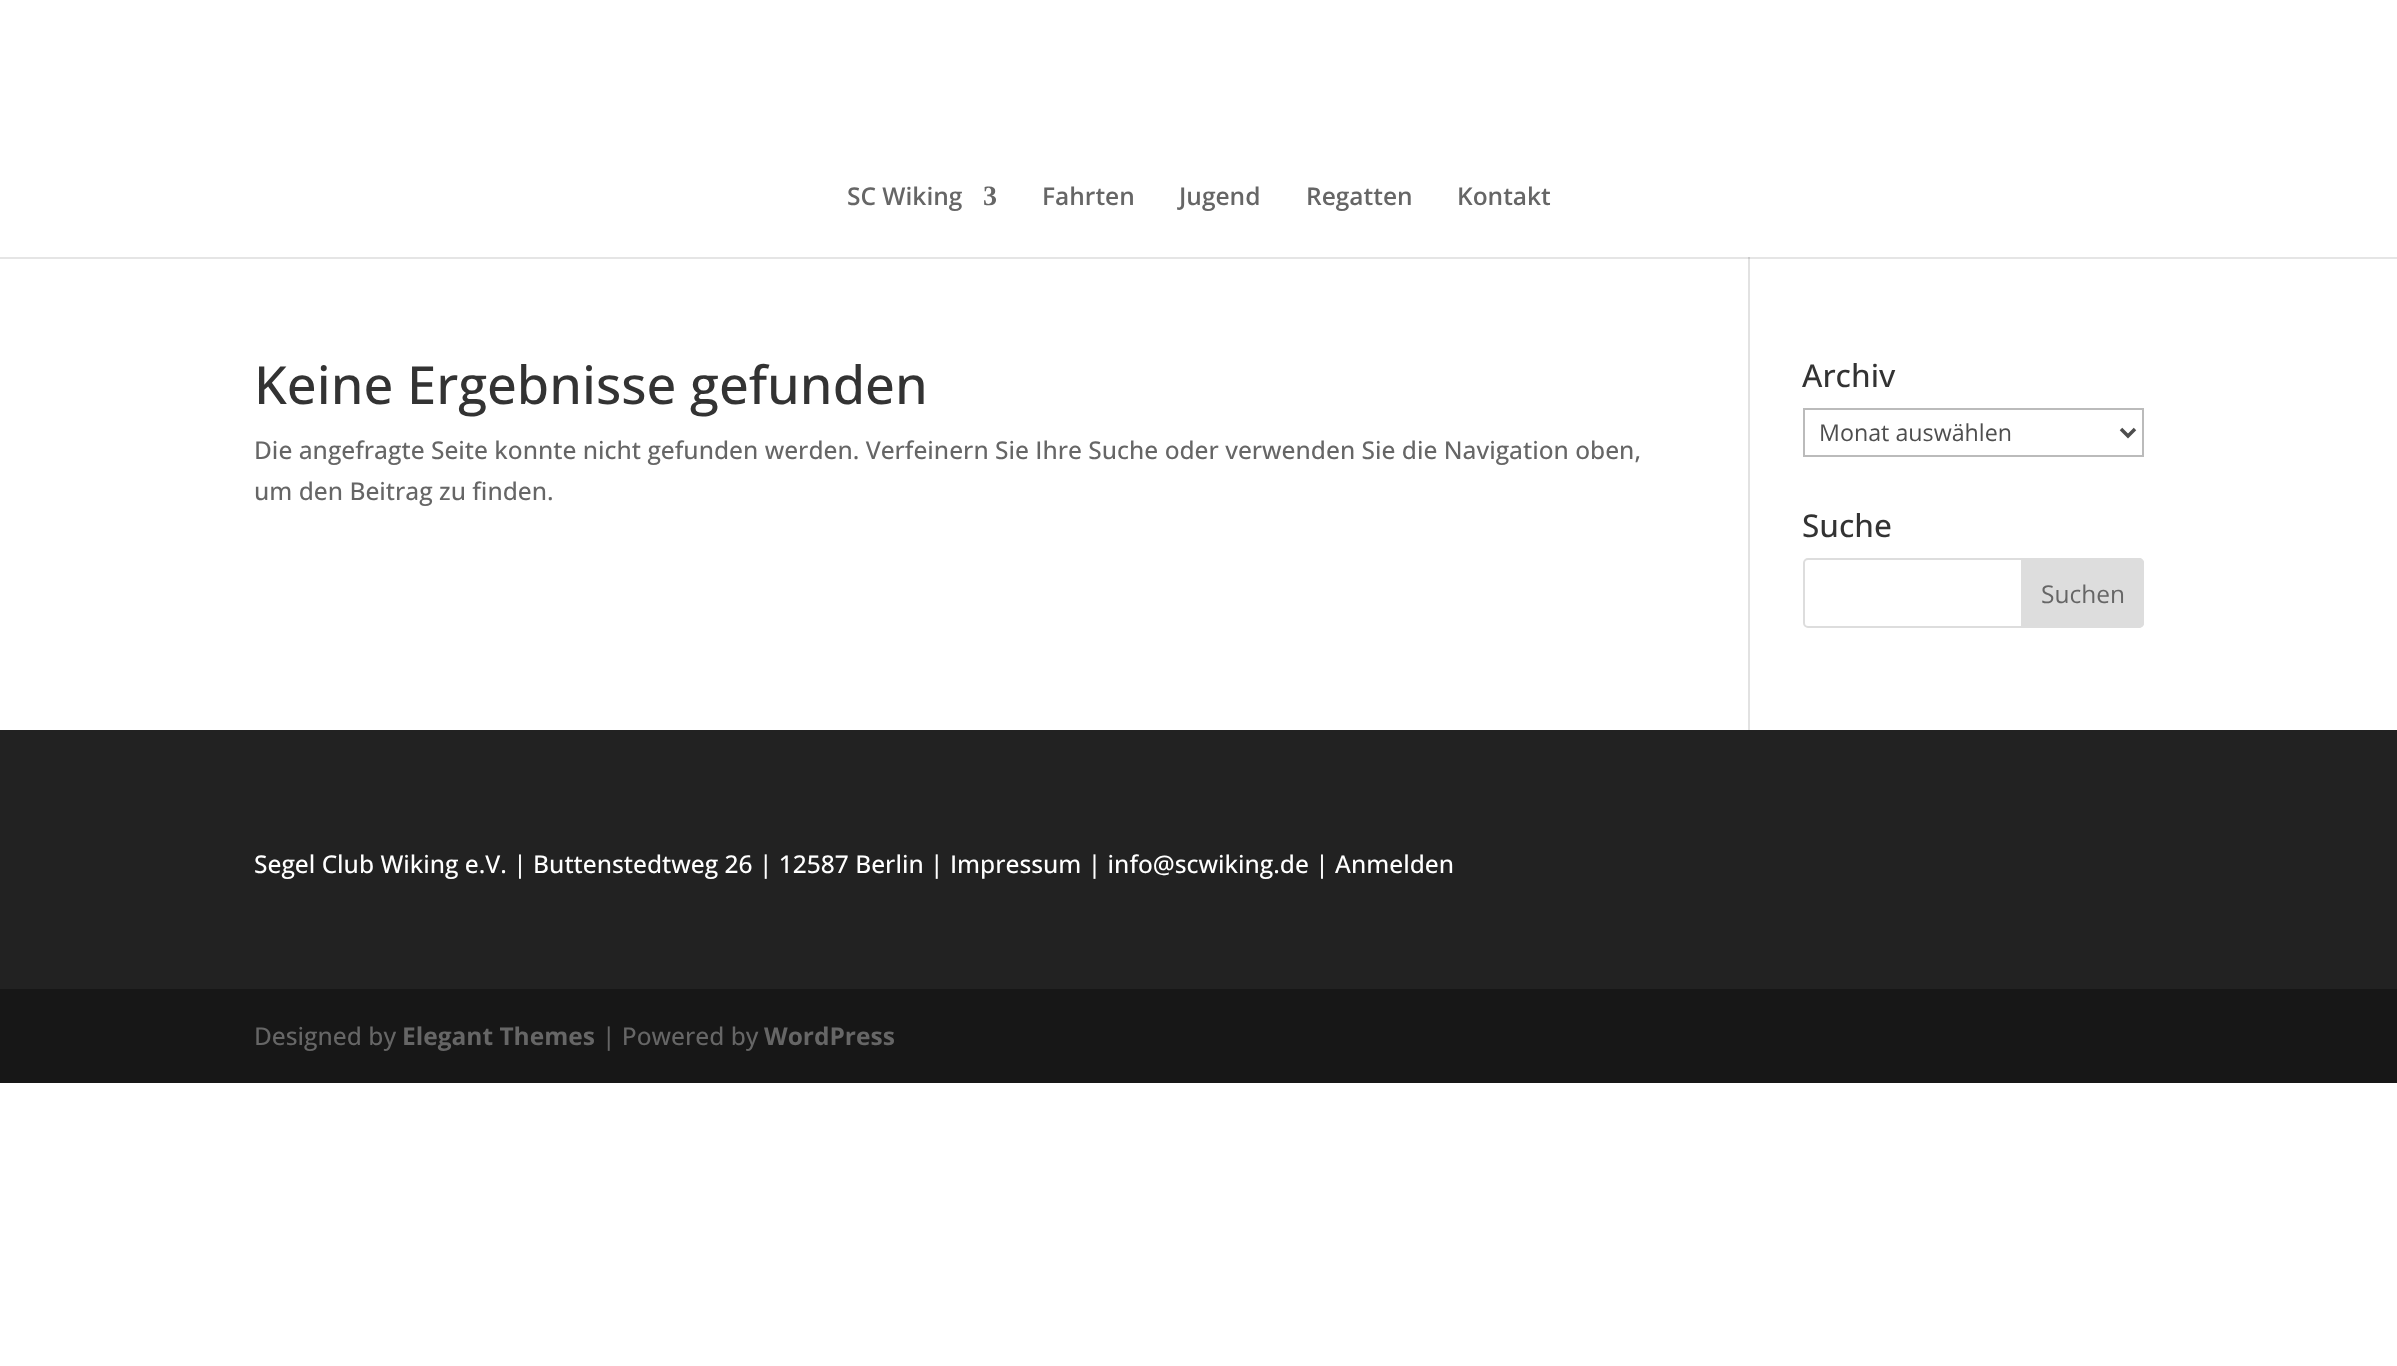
async function draw(canvas) {
	canvas.width = 2397;
	canvas.height = 1366;
	const c = canvas.getContext('2d');
	c.miterLimit = 4;
	c.fontKerning = 'normal';

	c.fillStyle = '#fff';
	c.fillRect(0, 0, 2397, 1366);
	c.fillStyle = '#e2e2e2';
	c.fillRect(1748, 257, 2, 473);
	c.fillStyle = '#0000001a';
	c.beginPath();
	c.moveTo(0, 257);
	c.lineTo(0, 259);
	c.lineTo(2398, 259);
	c.lineTo(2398, 2);
	c.lineTo(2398, 257);
	c.closePath();
	c.fill();
	c.font = '600 24.5px Open Sans';
	c.fillStyle = '#666';
	c.fillText('SC Wiking', 847, 205);
	c.font = 'bold 28px Liberation Serif';
	c.fillText('3', 983, 205);
	c.font = '600 24.5px Open Sans';
	for (const [text, x, y] of [
		['Fahrten', 1042, 205],
		['Jugend', 1179, 205],
		['Regatten', 1306, 205],
		['Kontakt', 1457, 205],
	]) {
		c.fillText(text, x, y);
	}
	c.font = '500 52.5px Open Sans';
	c.fillStyle = '#333';
	c.fillText('Keine Ergebnisse gefunden', 254, 404);
	c.font = '500 24.5px Open Sans';
	c.fillStyle = '#666';
	c.fillText('Die angefragte Seite konnte nicht gefunden werden. Verfeinern Sie Ihre Suche oder verwenden Sie die Navigation oben,', 254, 459);
	c.fillText('um den Beitrag zu finden.', 254, 500);
	c.font = '500 31.5px Open Sans';
	c.fillStyle = '#333';
	c.fillText('Archiv', 1802, 387);
	c.strokeStyle = '#bbb';
	c.lineWidth = 2;
	c.strokeRect(1804, 409, 339, 47);
	c.beginPath();
	c.moveTo(2121, 429);
	c.lineTo(2128, 436);
	c.lineTo(2135, 429);
	c.strokeStyle = '#4e4e4e';
	c.lineWidth = 3.5;
	c.stroke();
	c.font = '23.25px Open Sans';
	c.fillStyle = '#4e4e4e';
	c.fillText('Monat auswählen', 1819, 441);
	c.font = '500 31.5px Open Sans';
	c.fillStyle = '#333';
	c.fillText('Suche', 1802, 537);
	c.beginPath();
	c.roundRect(1804, 559, 339, 68, 4);
	c.strokeStyle = '#ddd';
	c.lineWidth = 2;
	c.stroke();
	c.fillStyle = '#ddd';
	c.beginPath();
	c.roundRect(2022, 559, 121, 68, [0, 4, 4, 0]);
	c.fill();
	c.stroke();
	c.font = '24.5px Open Sans';
	c.fillStyle = '#666';
	c.fillText('Suchen', 2041, 603);
	c.fillStyle = '#222';
	c.fillRect(0, 730, 2397, 259);
	c.font = '500 24.5px Open Sans';
	c.fillStyle = '#fff';
	c.fillText('Segel Club Wiking e.V. | Buttenstedtweg 26 | 12587 Berlin | Impressum | info@scwiking.de | Anmelden', 254, 873);
	c.fillStyle = '#171717';
	c.fillRect(0, 989, 2397, 94);
	c.fillStyle = '#666';
	c.fillText('Designed by', 254, 1045);
	c.font = 'bold 24.5px Open Sans';
	c.fillText('Elegant Themes', 402, 1045);
	c.font = '500 24.5px Open Sans';
	c.fillText('| Powered by', 602, 1045);
	c.font = 'bold 24.5px Open Sans';
	c.fillText('WordPress', 764, 1045);
}

draw(document.querySelector('canvas'));
